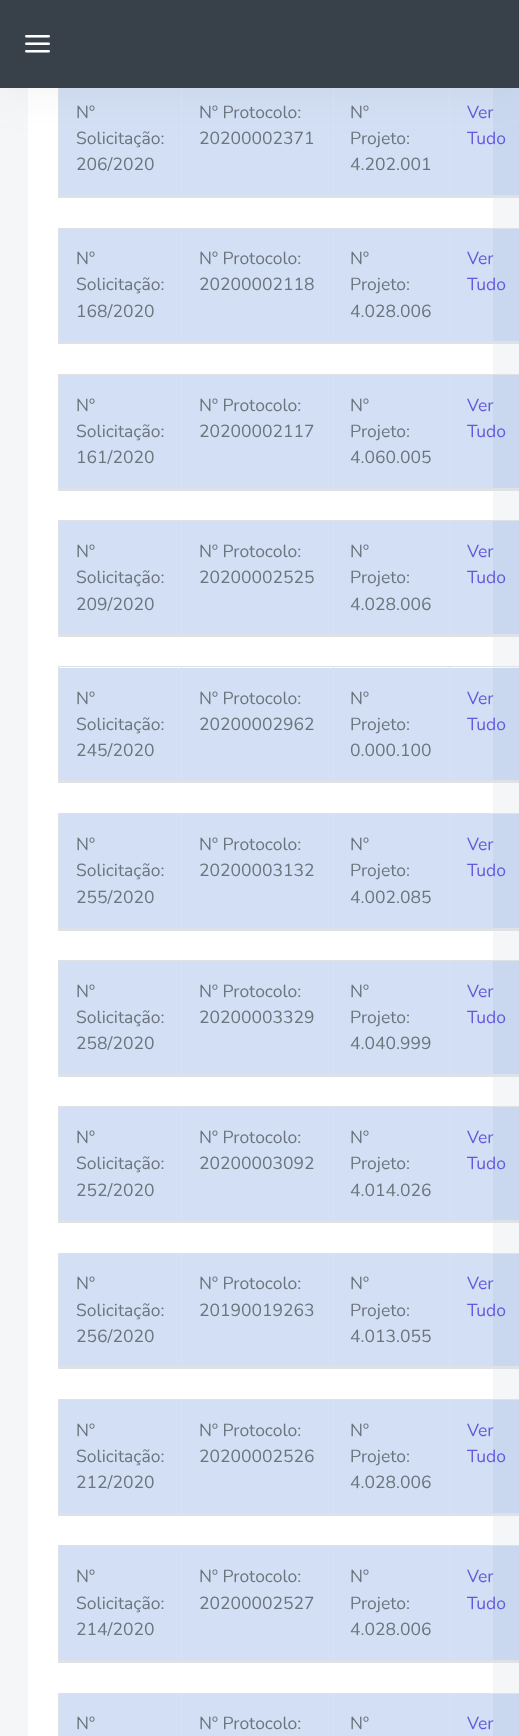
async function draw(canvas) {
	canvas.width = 519;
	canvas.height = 1736;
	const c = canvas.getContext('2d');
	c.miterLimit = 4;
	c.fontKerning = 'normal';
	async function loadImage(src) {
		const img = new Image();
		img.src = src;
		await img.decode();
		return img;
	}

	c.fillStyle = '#f5f6f8';
	c.fillRect(0, 0, 519, 1736);
	for (const [x, y, w, h, color] of [
		[28, 88, 465, 1648, '#fff'],
		[58, 81, 1, 117, '#dee2e6'],
		[59, 88, 460, 107, '#4a81d440'],
		[181, 81, 1, 115, '#dee2e6'],
		[333, 81, 1, 115, '#dee2e6'],
		[449, 81, 1, 115, '#dee2e6'],
	]) {
		c.fillStyle = color;
		c.fillRect(x, y, w, h);
	}
	c.fillStyle = '#9aa1ab26';
	c.filter = 'blur(22px)';
	c.beginPath();
	c.rect(0, 0, 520, 88);
	c.fill();
	c.filter = 'none';
	c.fillStyle = '#38414a';
	c.fillRect(0, 0, 519, 88);
	c.drawImage(await loadImage('img1.png'), 25, 35, 25, 18);
	c.font = '17.5px Nunito';
	c.fillStyle = '#6c757d';
	for (const [text, x, y] of [
		['Nº', 76, 118],
		['Solicitação:', 76, 144],
		['206/2020', 76, 170],
		['Nº Protocolo:', 199, 118],
		['20200002371', 199, 144],
		['Nº', 350, 118],
		['Projeto:', 350, 144],
		['4.202.001', 350, 170],
	]) {
		c.fillText(text, x, y);
	}
	c.fillStyle = '#dee2e6';
	c.fillRect(58, 195, 461, 3);
	c.fillStyle = '#6658dd';
	c.fillText('Ver', 467, 118);
	c.fillText('Tudo', 467, 144);
	for (const [x, y, w, h, color] of [
		[58, 228, 461, 1, '#dee2e6'],
		[58, 228, 1, 116, '#dee2e6'],
		[59, 229, 460, 112, '#4a81d440'],
	]) {
		c.fillStyle = color;
		c.fillRect(x, y, w, h);
	}
	c.fillStyle = '#6c757d';
	for (const [text, x, y] of [
		['Nº', 76, 264],
		['Solicitação:', 76, 290],
		['168/2020', 76, 317],
	]) {
		c.fillText(text, x, y);
	}
	c.fillStyle = '#dee2e6';
	c.fillRect(181, 228, 1, 115);
	c.fillStyle = '#6c757d';
	c.fillText('Nº Protocolo:', 199, 264);
	c.fillText('20200002118', 199, 290);
	c.fillStyle = '#dee2e6';
	c.fillRect(333, 228, 1, 115);
	c.fillStyle = '#6c757d';
	for (const [text, x, y] of [
		['Nº', 350, 264],
		['Projeto:', 350, 290],
		['4.028.006', 350, 317],
	]) {
		c.fillText(text, x, y);
	}
	c.fillStyle = '#dee2e6';
	c.fillRect(449, 228, 1, 115);
	c.fillRect(58, 341, 461, 3);
	c.fillStyle = '#6658dd';
	c.fillText('Ver', 467, 264);
	c.fillText('Tudo', 467, 290);
	for (const [x, y, w, h, color] of [
		[58, 374, 461, 1, '#dee2e6'],
		[58, 374, 1, 116, '#dee2e6'],
		[59, 375, 460, 113, '#4a81d440'],
	]) {
		c.fillStyle = color;
		c.fillRect(x, y, w, h);
	}
	c.fillStyle = '#6c757d';
	for (const [text, x, y] of [
		['Nº', 76, 411],
		['Solicitação:', 76, 437],
		['161/2020', 76, 463],
	]) {
		c.fillText(text, x, y);
	}
	c.fillStyle = '#dee2e6';
	c.fillRect(181, 374, 1, 116);
	c.fillStyle = '#6c757d';
	c.fillText('Nº Protocolo:', 199, 411);
	c.fillText('20200002117', 199, 437);
	c.fillStyle = '#dee2e6';
	c.fillRect(333, 374, 1, 116);
	c.fillStyle = '#6c757d';
	for (const [text, x, y] of [
		['Nº', 350, 411],
		['Projeto:', 350, 437],
		['4.060.005', 350, 463],
	]) {
		c.fillText(text, x, y);
	}
	c.fillStyle = '#dee2e6';
	c.fillRect(449, 374, 1, 116);
	c.fillRect(58, 488, 461, 3);
	c.fillStyle = '#6658dd';
	c.fillText('Ver', 467, 411);
	c.fillText('Tudo', 467, 437);
	for (const [x, y, w, h, color] of [
		[58, 520, 461, 1, '#dee2e6'],
		[58, 520, 1, 116, '#dee2e6'],
		[59, 521, 460, 113, '#4a81d440'],
	]) {
		c.fillStyle = color;
		c.fillRect(x, y, w, h);
	}
	c.fillStyle = '#6c757d';
	for (const [text, x, y] of [
		['Nº', 76, 557],
		['Solicitação:', 76, 583],
		['209/2020', 76, 610],
	]) {
		c.fillText(text, x, y);
	}
	c.fillStyle = '#dee2e6';
	c.fillRect(181, 520, 1, 116);
	c.fillStyle = '#6c757d';
	c.fillText('Nº Protocolo:', 199, 557);
	c.fillText('20200002525', 199, 583);
	c.fillStyle = '#dee2e6';
	c.fillRect(333, 520, 1, 116);
	c.fillStyle = '#6c757d';
	for (const [text, x, y] of [
		['Nº', 350, 557],
		['Projeto:', 350, 583],
		['4.028.006', 350, 610],
	]) {
		c.fillText(text, x, y);
	}
	c.fillStyle = '#dee2e6';
	c.fillRect(449, 520, 1, 116);
	c.fillRect(58, 634, 461, 3);
	c.fillStyle = '#6658dd';
	c.fillText('Ver', 467, 557);
	c.fillText('Tudo', 467, 583);
	for (const [x, y, w, h, color] of [
		[58, 666, 461, 1, '#dee2e6'],
		[58, 666, 1, 117, '#dee2e6'],
		[59, 668, 460, 112, '#4a81d440'],
	]) {
		c.fillStyle = color;
		c.fillRect(x, y, w, h);
	}
	c.fillStyle = '#6c757d';
	for (const [text, x, y] of [
		['Nº', 76, 704],
		['Solicitação:', 76, 730],
		['245/2020', 76, 756],
	]) {
		c.fillText(text, x, y);
	}
	c.fillStyle = '#dee2e6';
	c.fillRect(181, 666, 1, 117);
	c.fillStyle = '#6c757d';
	c.fillText('Nº Protocolo:', 199, 704);
	c.fillText('20200002962', 199, 730);
	c.fillStyle = '#dee2e6';
	c.fillRect(333, 666, 1, 117);
	c.fillStyle = '#6c757d';
	for (const [text, x, y] of [
		['Nº', 350, 704],
		['Projeto:', 350, 730],
		['0.000.100', 350, 756],
	]) {
		c.fillText(text, x, y);
	}
	c.fillStyle = '#dee2e6';
	c.fillRect(449, 666, 1, 117);
	c.fillRect(58, 780, 461, 3);
	c.fillStyle = '#6658dd';
	c.fillText('Ver', 467, 704);
	c.fillText('Tudo', 467, 730);
	for (const [x, y, w, h, color] of [
		[58, 813, 461, 1, '#dee2e6'],
		[58, 813, 1, 117, '#dee2e6'],
		[59, 814, 460, 114, '#4a81d440'],
	]) {
		c.fillStyle = color;
		c.fillRect(x, y, w, h);
	}
	c.fillStyle = '#6c757d';
	for (const [text, x, y] of [
		['Nº', 76, 850],
		['Solicitação:', 76, 876],
		['255/2020', 76, 903],
	]) {
		c.fillText(text, x, y);
	}
	c.fillStyle = '#dee2e6';
	c.fillRect(181, 813, 1, 116);
	c.fillStyle = '#6c757d';
	c.fillText('Nº Protocolo:', 199, 850);
	c.fillText('20200003132', 199, 876);
	c.fillStyle = '#dee2e6';
	c.fillRect(333, 813, 1, 116);
	c.fillStyle = '#6c757d';
	for (const [text, x, y] of [
		['Nº', 350, 850],
		['Projeto:', 350, 876],
		['4.002.085', 350, 903],
	]) {
		c.fillText(text, x, y);
	}
	c.fillStyle = '#dee2e6';
	c.fillRect(449, 813, 1, 116);
	c.fillRect(58, 928, 461, 3);
	c.fillStyle = '#6658dd';
	c.fillText('Ver', 467, 850);
	c.fillText('Tudo', 467, 876);
	for (const [x, y, w, h, color] of [
		[58, 960, 461, 1, '#dee2e6'],
		[58, 960, 1, 116, '#dee2e6'],
		[59, 961, 460, 113, '#4a81d440'],
	]) {
		c.fillStyle = color;
		c.fillRect(x, y, w, h);
	}
	c.fillStyle = '#6c757d';
	for (const [text, x, y] of [
		['Nº', 76, 997],
		['Solicitação:', 76, 1023],
		['258/2020', 76, 1049],
	]) {
		c.fillText(text, x, y);
	}
	c.fillStyle = '#dee2e6';
	c.fillRect(181, 960, 1, 115);
	c.fillStyle = '#6c757d';
	c.fillText('Nº Protocolo:', 199, 997);
	c.fillText('20200003329', 199, 1023);
	c.fillStyle = '#dee2e6';
	c.fillRect(333, 960, 1, 115);
	c.fillStyle = '#6c757d';
	for (const [text, x, y] of [
		['Nº', 350, 997],
		['Projeto:', 350, 1023],
		['4.040.999', 350, 1049],
	]) {
		c.fillText(text, x, y);
	}
	c.fillStyle = '#dee2e6';
	c.fillRect(449, 960, 1, 115);
	c.fillRect(58, 1074, 461, 3);
	c.fillStyle = '#6658dd';
	c.fillText('Ver', 467, 997);
	c.fillText('Tudo', 467, 1023);
	for (const [x, y, w, h, color] of [
		[58, 1106, 461, 1, '#dee2e6'],
		[58, 1106, 1, 117, '#dee2e6'],
		[59, 1107, 460, 113, '#4a81d440'],
	]) {
		c.fillStyle = color;
		c.fillRect(x, y, w, h);
	}
	c.fillStyle = '#6c757d';
	for (const [text, x, y] of [
		['Nº', 76, 1143],
		['Solicitação:', 76, 1169],
		['252/2020', 76, 1196],
	]) {
		c.fillText(text, x, y);
	}
	c.fillStyle = '#dee2e6';
	c.fillRect(181, 1106, 1, 117);
	c.fillStyle = '#6c757d';
	c.fillText('Nº Protocolo:', 199, 1143);
	c.fillText('20200003092', 199, 1169);
	c.fillStyle = '#dee2e6';
	c.fillRect(333, 1106, 1, 117);
	c.fillStyle = '#6c757d';
	for (const [text, x, y] of [
		['Nº', 350, 1143],
		['Projeto:', 350, 1169],
		['4.014.026', 350, 1196],
	]) {
		c.fillText(text, x, y);
	}
	c.fillStyle = '#dee2e6';
	c.fillRect(449, 1106, 1, 117);
	c.fillRect(58, 1220, 461, 3);
	c.fillStyle = '#6658dd';
	c.fillText('Ver', 467, 1143);
	c.fillText('Tudo', 467, 1169);
	for (const [x, y, w, h, color] of [
		[58, 1253, 461, 1, '#dee2e6'],
		[58, 1253, 1, 116, '#dee2e6'],
		[59, 1254, 460, 112, '#4a81d440'],
	]) {
		c.fillStyle = color;
		c.fillRect(x, y, w, h);
	}
	c.fillStyle = '#6c757d';
	for (const [text, x, y] of [
		['Nº', 76, 1289],
		['Solicitação:', 76, 1316],
		['256/2020', 76, 1342],
	]) {
		c.fillText(text, x, y);
	}
	c.fillStyle = '#dee2e6';
	c.fillRect(181, 1253, 1, 116);
	c.fillStyle = '#6c757d';
	c.fillText('Nº Protocolo:', 199, 1289);
	c.fillText('20190019263', 199, 1316);
	c.fillStyle = '#dee2e6';
	c.fillRect(333, 1253, 1, 116);
	c.fillStyle = '#6c757d';
	for (const [text, x, y] of [
		['Nº', 350, 1289],
		['Projeto:', 350, 1316],
		['4.013.055', 350, 1342],
	]) {
		c.fillText(text, x, y);
	}
	c.fillStyle = '#dee2e6';
	c.fillRect(449, 1253, 1, 116);
	c.fillRect(58, 1366, 461, 3);
	c.fillStyle = '#6658dd';
	c.fillText('Ver', 467, 1289);
	c.fillText('Tudo', 467, 1316);
	for (const [x, y, w, h, color] of [
		[58, 1399, 461, 1, '#dee2e6'],
		[58, 1399, 1, 116, '#dee2e6'],
		[59, 1400, 460, 113, '#4a81d440'],
	]) {
		c.fillStyle = color;
		c.fillRect(x, y, w, h);
	}
	c.fillStyle = '#6c757d';
	for (const [text, x, y] of [
		['Nº', 76, 1436],
		['Solicitação:', 76, 1462],
		['212/2020', 76, 1488],
	]) {
		c.fillText(text, x, y);
	}
	c.fillStyle = '#dee2e6';
	c.fillRect(181, 1399, 1, 116);
	c.fillStyle = '#6c757d';
	c.fillText('Nº Protocolo:', 199, 1436);
	c.fillText('20200002526', 199, 1462);
	c.fillStyle = '#dee2e6';
	c.fillRect(333, 1399, 1, 116);
	c.fillStyle = '#6c757d';
	for (const [text, x, y] of [
		['Nº', 350, 1436],
		['Projeto:', 350, 1462],
		['4.028.006', 350, 1488],
	]) {
		c.fillText(text, x, y);
	}
	c.fillStyle = '#dee2e6';
	c.fillRect(449, 1399, 1, 116);
	c.fillRect(58, 1513, 461, 3);
	c.fillStyle = '#6658dd';
	c.fillText('Ver', 467, 1436);
	c.fillText('Tudo', 467, 1462);
	for (const [x, y, w, h, color] of [
		[58, 1545, 461, 1, '#dee2e6'],
		[58, 1545, 1, 118, '#dee2e6'],
		[59, 1546, 460, 114, '#4a81d440'],
	]) {
		c.fillStyle = color;
		c.fillRect(x, y, w, h);
	}
	c.fillStyle = '#6c757d';
	for (const [text, x, y] of [
		['Nº', 76, 1582],
		['Solicitação:', 76, 1609],
		['214/2020', 76, 1635],
	]) {
		c.fillText(text, x, y);
	}
	c.fillStyle = '#dee2e6';
	c.fillRect(181, 1545, 1, 116);
	c.fillStyle = '#6c757d';
	c.fillText('Nº Protocolo:', 199, 1582);
	c.fillText('20200002527', 199, 1609);
	c.fillStyle = '#dee2e6';
	c.fillRect(333, 1545, 1, 116);
	c.fillStyle = '#6c757d';
	for (const [text, x, y] of [
		['Nº', 350, 1582],
		['Projeto:', 350, 1609],
		['4.028.006', 350, 1635],
	]) {
		c.fillText(text, x, y);
	}
	c.fillStyle = '#dee2e6';
	c.fillRect(449, 1545, 1, 116);
	c.fillRect(58, 1660, 461, 3);
	c.fillStyle = '#6658dd';
	c.fillText('Ver', 467, 1582);
	c.fillText('Tudo', 467, 1609);
	for (const [x, y, w, h, color] of [
		[58, 1693, 461, 1, '#dee2e6'],
		[58, 1693, 1, 43, '#dee2e6'],
		[59, 1694, 460, 42, '#4a81d440'],
	]) {
		c.fillStyle = color;
		c.fillRect(x, y, w, h);
	}
	c.fillStyle = '#6c757d';
	c.fillText('Nº', 76, 1729);
	c.fillStyle = '#dee2e6';
	c.fillRect(181, 1693, 1, 43);
	c.fillStyle = '#6c757d';
	c.fillText('Nº Protocolo:', 199, 1729);
	c.fillStyle = '#dee2e6';
	c.fillRect(333, 1693, 1, 43);
	c.fillStyle = '#6c757d';
	c.fillText('Nº', 350, 1729);
	c.fillStyle = '#dee2e6';
	c.fillRect(449, 1693, 1, 43);
	c.fillStyle = '#6658dd';
	c.fillText('Ver', 467, 1729);
}

draw(document.querySelector('canvas'));
